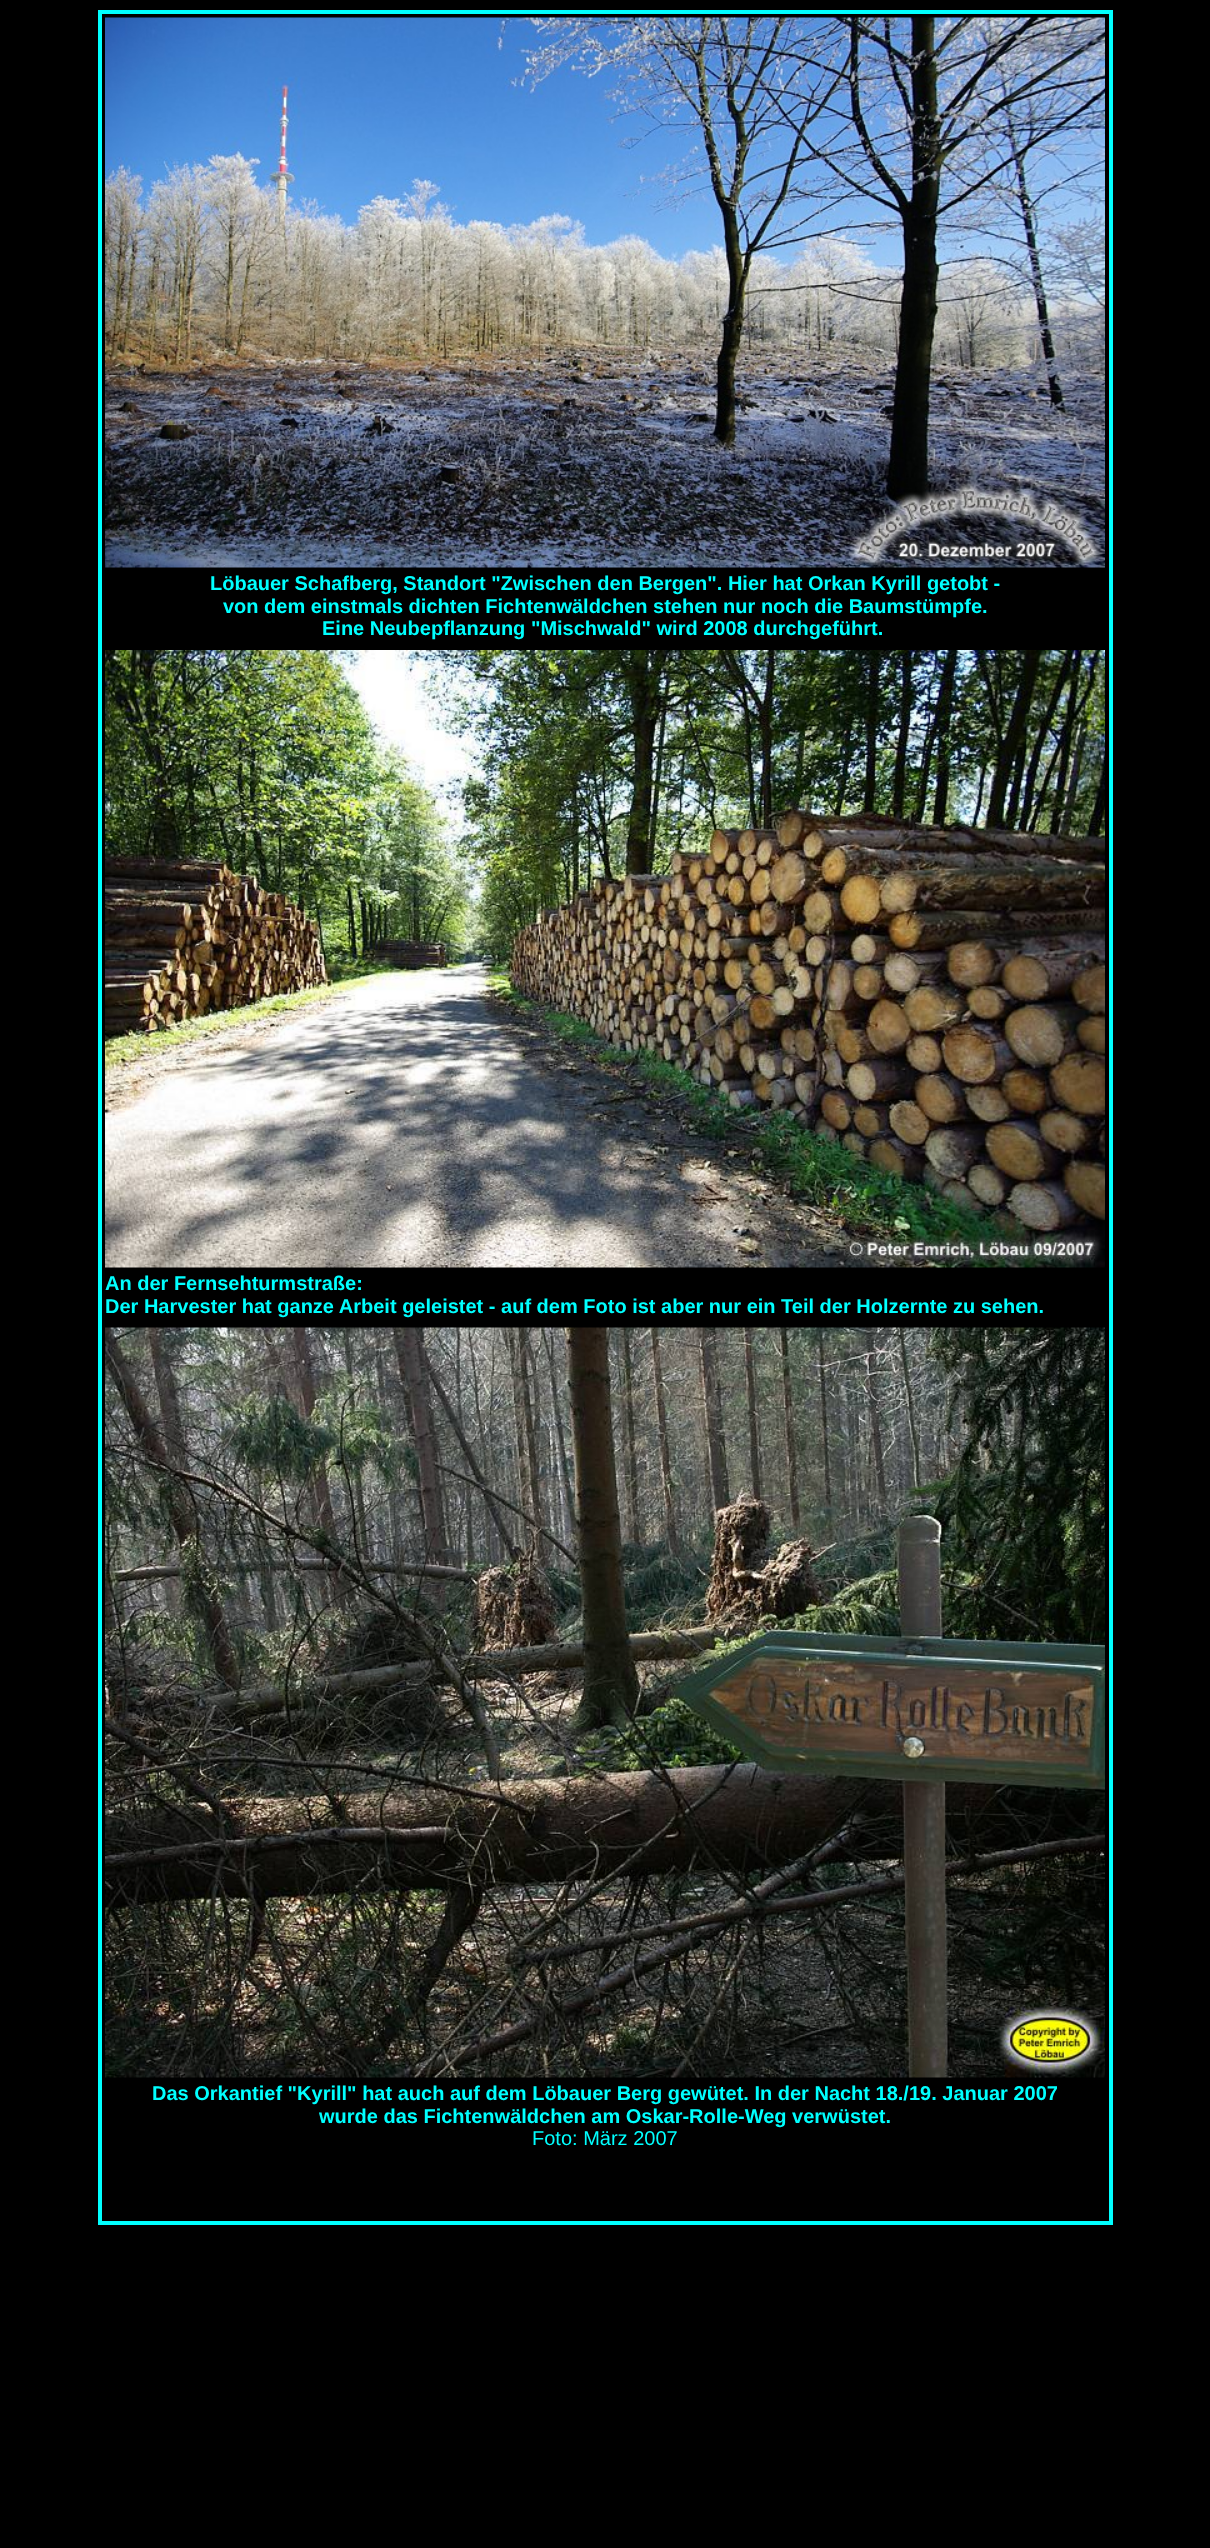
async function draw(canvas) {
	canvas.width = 1210;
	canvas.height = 2548;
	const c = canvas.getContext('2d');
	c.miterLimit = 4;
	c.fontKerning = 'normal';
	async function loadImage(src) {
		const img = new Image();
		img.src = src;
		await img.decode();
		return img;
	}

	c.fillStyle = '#000';
	c.fillRect(0, 0, 1210, 2548);
	c.strokeStyle = '#0ff';
	c.lineWidth = 4;
	c.strokeRect(100, 12, 1011, 2211);
	c.drawImage(await loadImage('img1.png'), 105, 17, 1000, 551);
	c.font = 'bold 20px Liberation Sans';
	c.fillStyle = '#0ff';
	for (const [text, x, y] of [
		['Löbauer Schafberg, Standort "Zwischen den Bergen". Hier hat Orkan Kyrill getobt -', 210, 590],
		['von dem einstmals dichten Fichtenwäldchen stehen nur noch die Baumstümpfe.', 223, 613],
		['Eine Neubepflanzung "Mischwald" wird 2008 durchgeführt.', 322, 635],
	]) {
		c.fillText(text, x, y);
	}
	c.drawImage(await loadImage('img2.png'), 105, 650, 1000, 618);
	c.fillText('An der Fernsehturmstraße:', 105, 1290);
	c.fillText('Der Harvester hat ganze Arbeit geleistet - auf dem Foto ist aber nur ein Teil der Holzernte zu sehen.', 105, 1313);
	c.drawImage(await loadImage('img3.png'), 105, 1327, 1000, 751);
	c.fillText('Das Orkantief "Kyrill" hat auch auf dem Löbauer Berg gewütet. In der Nacht 18./19. Januar 2007', 152, 2100);
	c.fillText('wurde das Fichtenwäldchen am Oskar-Rolle-Weg verwüstet.', 319, 2123);
	c.font = '20px Liberation Sans';
	c.fillText('Foto: März 2007', 532, 2145);
}

draw(document.querySelector('canvas'));
